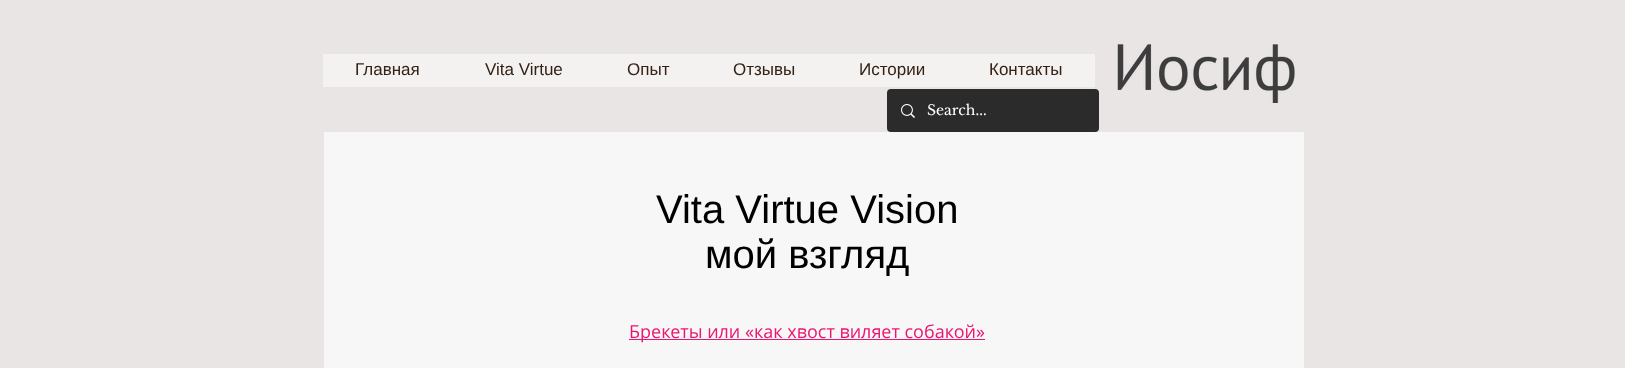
async function draw(canvas) {
	canvas.width = 1625;
	canvas.height = 368;
	const c = canvas.getContext('2d');
	c.miterLimit = 4;
	c.fontKerning = 'normal';
	async function loadImage(src) {
		const img = new Image();
		img.src = src;
		await img.decode();
		return img;
	}

	c.fillStyle = '#eae5e5';
	c.fillRect(0, 0, 1625, 368);
	c.fillStyle = '#f4f1f1';
	c.fillRect(323, 54, 772, 33);
	c.font = '17px Liberation Sans';
	c.fillStyle = '#342216';
	for (const [text, x, y] of [
		['Главная', 355, 75],
		['Vita Virtue', 485, 75],
		['Опыт', 627, 75],
		['Отзывы', 733, 75],
		['Истории', 859, 75],
		['Контакты', 989, 75],
	]) {
		c.fillText(text, x, y);
	}
	c.drawImage(await loadImage('img1.png'), 1117, 44, 178, 59);
	c.fillStyle = '#2b2b2b';
	c.beginPath();
	c.roundRect(887, 89, 212, 43, 4);
	c.fill();
	c.drawImage(await loadImage('img2.png'), 901, 104, 14, 14);
	c.font = '14px Libre Baskerville';
	c.fillStyle = '#fff';
	c.fillText('Search...', 927, 115);
	c.fillStyle = '#f8f7f7';
	c.fillRect(324, 132, 980, 236);
	c.font = '40px Liberation Sans';
	c.fillStyle = '#000';
	c.fillText('Vita Virtue Vision', 656, 223);
	c.fillText('мой взгляд', 705, 268);
	c.fillStyle = '#ea1571';
	c.fillRect(629, 339, 356, 1);
	c.font = '18px Open Sans';
	c.fillText('Брекеты или «как хвост виляет собакой»', 629, 338);
}

draw(document.querySelector('canvas'));
